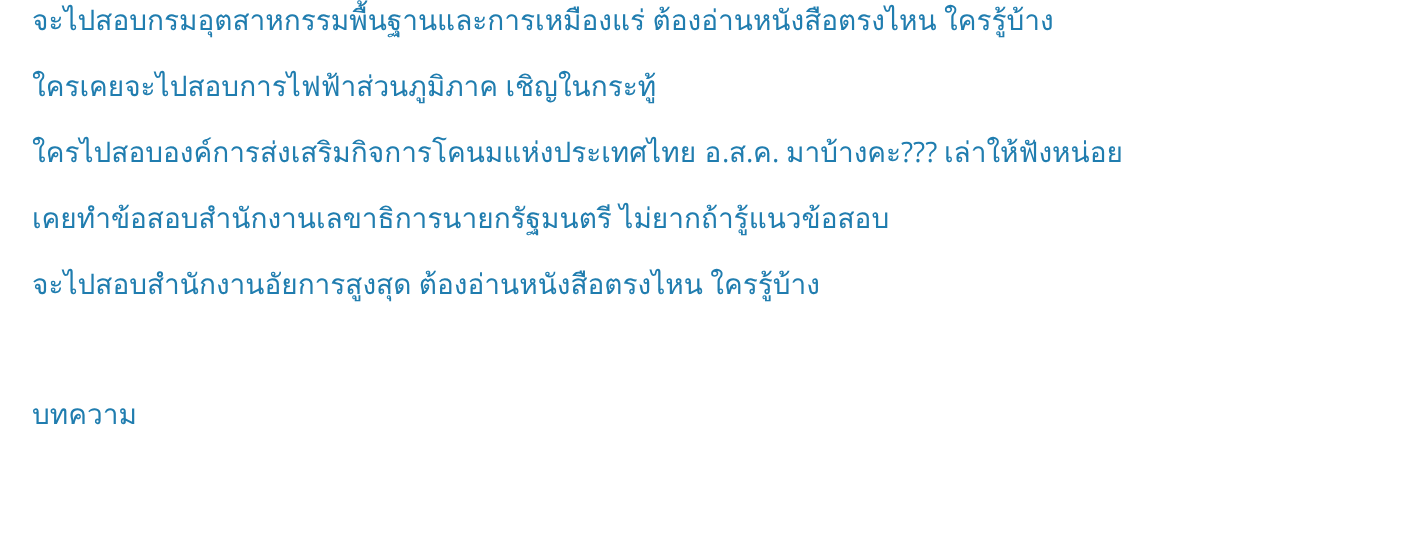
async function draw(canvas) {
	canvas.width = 1420;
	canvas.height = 548;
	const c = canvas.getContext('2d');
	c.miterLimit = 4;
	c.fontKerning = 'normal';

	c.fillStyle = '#fff';
	c.fillRect(0, 0, 1420, 548);
	c.wordSpacing = '-2px';
	c.font = '28px Loma';
	c.fillStyle = '#207daf';
	c.fillText('จะไปสอบกรมอุตสาหกรรมพื้นฐานและการเหมืองแร่ ต้องอ่านหนังสือตรงไหน ใครรู้บ้าง', 32, 30);
	c.fillText('ใครเคยจะไปสอบการไฟฟ้าส่วนภูมิภาค เชิญในกระทู้', 32, 96);
	c.wordSpacing = '-1px';
	c.fillText('ใครไปสอบองค์การส่งเสริมกิจการโคนมแห่งประเทศไทย อ', 32, 162);
	c.wordSpacing = '0px';
	c.font = '28px Open Sans';
	c.fillText('.', 722, 162);
	c.font = '28px Loma';
	c.fillText('ส', 729, 162);
	c.font = '28px Open Sans';
	c.fillText('.', 746, 162);
	c.font = '28px Loma';
	c.fillText('ค', 753, 162);
	c.font = '28px Open Sans';
	c.fillText('.', 772, 162);
	c.font = '28px Loma';
	c.fillText('มาบ้างคะ', 786, 162);
	c.font = '28px Open Sans';
	c.fillText('???', 901, 162);
	c.font = '28px Loma';
	c.fillText('เล่าให้ฟังหน่อย', 944, 162);
	c.wordSpacing = '-2px';
	c.fillText('เคยทำข้อสอบสำนักงานเลขาธิการนายกรัฐมนตรี ไม่ยากถ้ารู้แนวข้อสอบ', 32, 228);
	c.fillText('จะไปสอบสำนักงานอัยการสูงสุด ต้องอ่านหนังสือตรงไหน ใครรู้บ้าง', 32, 294);
	c.wordSpacing = '0px';
	c.fillText('บทความ', 32, 424);
}

draw(document.querySelector('canvas'));
